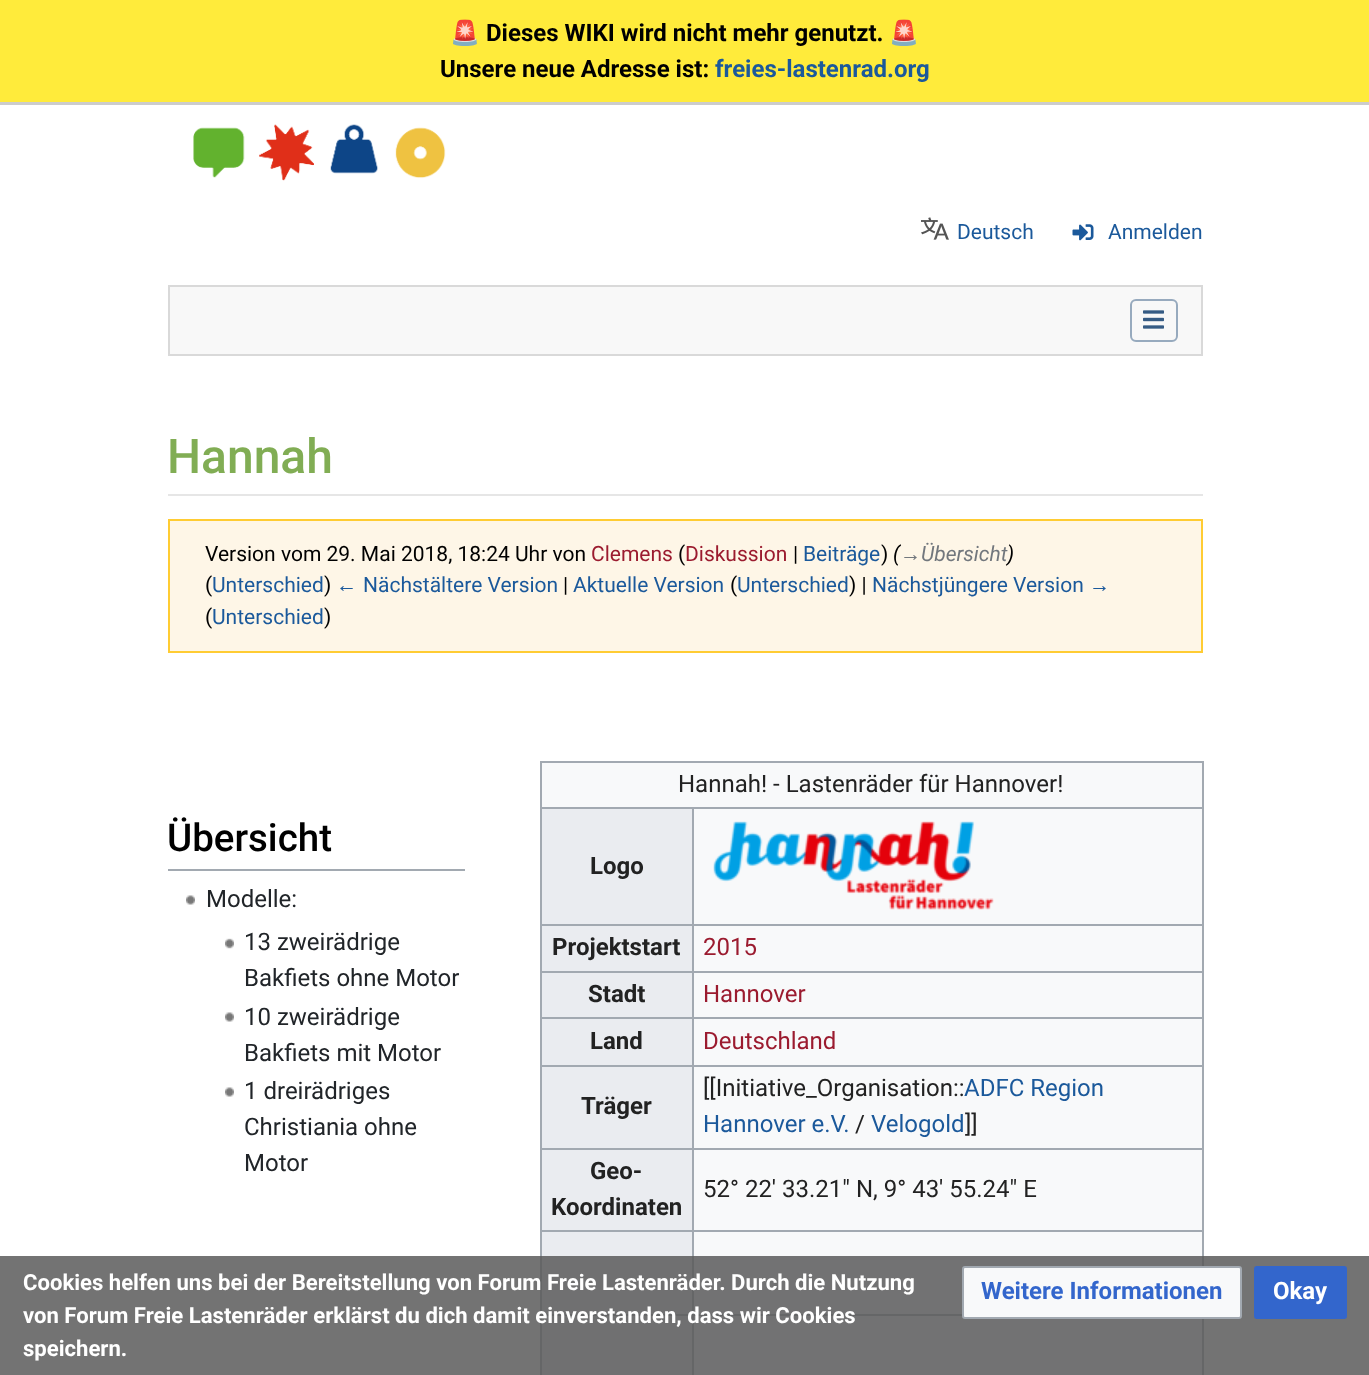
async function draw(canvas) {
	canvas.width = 1369;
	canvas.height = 1375;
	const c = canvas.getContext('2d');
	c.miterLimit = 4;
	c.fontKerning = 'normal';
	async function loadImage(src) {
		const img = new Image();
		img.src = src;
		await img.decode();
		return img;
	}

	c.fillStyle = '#fff';
	c.fillRect(0, 0, 1369, 1375);
	c.fillStyle = '#ffeb3b';
	c.fillRect(0, 0, 1369, 102);
	c.fillStyle = '#ccc';
	c.fillRect(0, 102, 1369, 3);
	c.font = 'bold 24px Noto Color Emoji';
	c.fillStyle = '#000';
	c.fillText('🚨', 450, 41);
	c.font = 'bold 24px Roboto';
	c.fillText('Dieses WIKI wird nicht mehr genutzt.', 486, 41);
	c.font = 'bold 24px Noto Color Emoji';
	c.fillText('🚨', 889, 41);
	c.font = 'bold 24px Roboto';
	c.fillText('Unsere neue Adresse ist:', 440, 77);
	c.fillStyle = '#1b599b';
	c.fillText('freies-lastenrad.org', 715, 77);
	c.drawImage(await loadImage('img1.png'), 193, 124, 253, 57);
	c.drawImage(await loadImage('img2.png'), 921, 217, 28, 23);
	c.font = '21px Roboto';
	c.fillText('Deutsch', 957, 239);
	c.drawImage(await loadImage('img3.png'), 1072, 224, 22, 17);
	c.fillText('Anmelden', 1108, 239);
	c.fillStyle = '#f8f8f8';
	c.beginPath();
	c.rect(169, 286, 1033, 69);
	c.fill();
	c.strokeStyle = '#d9d9d9';
	c.lineWidth = 2;
	c.stroke();
	c.beginPath();
	c.roundRect(1131, 300, 46, 41, 5);
	c.strokeStyle = '#97aabe';
	c.stroke();
	c.drawImage(await loadImage('img4.png'), 1143, 310, 21, 19);
	c.fillStyle = '#e6e6e6';
	c.fillRect(168, 494, 1035, 2);
	c.font = '500 48px Roboto';
	c.fillStyle = '#81ad54';
	c.fillText('Hannah', 167, 473);
	c.fillStyle = '#fef6e7';
	c.beginPath();
	c.rect(169, 520, 1033, 132);
	c.fill();
	c.strokeStyle = '#fc3';
	c.stroke();
	c.font = '21px Roboto';
	c.fillStyle = '#000';
	c.fillText('Version vom 29. Mai 2018, 18:24 Uhr von', 205, 561);
	c.fillStyle = '#9b1b2f';
	c.fillText('Clemens', 591, 561);
	c.fillStyle = '#000';
	c.fillText('(', 678, 561);
	c.fillStyle = '#9b1b2f';
	c.fillText('Diskussion', 685, 561);
	c.fillStyle = '#000';
	c.fillText('|', 793, 561);
	c.fillStyle = '#1b599b';
	c.fillText('Beiträge', 803, 561);
	c.fillStyle = '#000';
	c.fillText(')', 881, 561);
	c.font = 'italic 21px Roboto';
	c.fillText('(', 893, 561);
	c.font = 'italic 21px Liberation Sans';
	c.fillStyle = '#72777d';
	c.fillText('→', 900, 561);
	c.font = 'italic 21px Roboto';
	c.fillText('Übersicht', 921, 561);
	c.fillStyle = '#000';
	c.fillText(')', 1007, 561);
	c.font = '21px Roboto';
	c.fillText('(', 205, 592);
	c.fillStyle = '#1b599b';
	c.fillText('Unterschied', 212, 592);
	c.fillStyle = '#000';
	c.fillText(')', 324, 592);
	c.font = '21px Liberation Sans';
	c.fillStyle = '#1b599b';
	c.fillText('←', 336, 592);
	c.font = '21px Roboto';
	c.fillText('Nächstältere Version', 363, 592);
	c.fillStyle = '#000';
	c.fillText('|', 563, 592);
	c.fillStyle = '#1b599b';
	c.fillText('Aktuelle Version', 573, 592);
	c.fillStyle = '#000';
	c.fillText('(', 730, 592);
	c.fillStyle = '#1b599b';
	c.fillText('Unterschied', 737, 592);
	c.fillStyle = '#000';
	c.fillText(') |', 849, 592);
	c.fillStyle = '#1b599b';
	c.fillText('Nächstjüngere Version', 872, 592);
	c.font = '21px Liberation Sans';
	c.fillText('→', 1089, 592);
	c.font = '21px Roboto';
	c.fillStyle = '#000';
	c.fillText('(', 205, 624);
	c.fillStyle = '#1b599b';
	c.fillText('Unterschied', 212, 624);
	c.fillStyle = '#000';
	c.fillText(')', 324, 624);
	c.fillStyle = '#a2a9b1';
	c.fillRect(168, 869, 297, 2);
	c.font = '500 38.5px Roboto';
	c.fillStyle = '#000';
	c.fillText('Übersicht', 167, 851);
	for (const [x, y, w, h, color] of [
		[542, 763, 660, 612, '#f8f9fa'],
		[540, 761, 663, 2, '#a2a9b1'],
		[1202, 761, 2, 614, '#a2a9b1'],
		[540, 761, 2, 614, '#a2a9b1'],
	]) {
		c.fillStyle = color;
		c.fillRect(x, y, w, h);
	}
	c.font = '24px Roboto';
	c.fillStyle = '#222';
	c.fillText('Hannah! - Lastenräder für Hannover!', 678, 792);
	for (const [x, y, w, h, color] of [
		[542, 809, 150, 115, '#eaecf0'],
		[692, 807, 511, 2, '#a2a9b1'],
		[692, 924, 511, 2, '#a2a9b1'],
		[692, 971, 511, 2, '#a2a9b1'],
		[692, 1017, 511, 2, '#a2a9b1'],
		[692, 1065, 511, 2, '#a2a9b1'],
		[692, 1148, 511, 2, '#a2a9b1'],
		[692, 1230, 511, 2, '#a2a9b1'],
		[692, 1314, 270, 2, '#a2a9b1'],
		[692, 1314, 2, 61, '#a2a9b1'],
		[540, 1314, 153, 2, '#a2a9b1'],
		[692, 1230, 2, 86, '#a2a9b1'],
		[540, 1230, 153, 2, '#a2a9b1'],
		[692, 1148, 2, 84, '#a2a9b1'],
		[540, 1148, 153, 2, '#a2a9b1'],
		[692, 1065, 2, 84, '#a2a9b1'],
		[540, 1065, 153, 2, '#a2a9b1'],
		[692, 1017, 2, 50, '#a2a9b1'],
		[540, 1017, 153, 2, '#a2a9b1'],
		[692, 971, 2, 48, '#a2a9b1'],
		[540, 971, 153, 2, '#a2a9b1'],
		[692, 924, 2, 48, '#a2a9b1'],
		[540, 924, 153, 2, '#a2a9b1'],
		[692, 807, 2, 119, '#a2a9b1'],
		[540, 807, 153, 2, '#a2a9b1'],
	]) {
		c.fillStyle = color;
		c.fillRect(x, y, w, h);
	}
	c.font = 'bold 24px Roboto';
	c.fillStyle = '#222';
	c.fillText('Logo', 590, 874);
	c.drawImage(await loadImage('img5.png'), 713, 821, 281, 89);
	c.fillStyle = '#eaecf0';
	c.fillRect(542, 926, 150, 45);
	c.fillStyle = '#222';
	c.fillText('Projektstart', 552, 955);
	c.font = '24px Roboto';
	c.fillStyle = '#9b1b2f';
	c.fillText('2015', 703, 955);
	c.fillStyle = '#eaecf0';
	c.fillRect(542, 973, 150, 44);
	c.font = 'bold 24px Roboto';
	c.fillStyle = '#222';
	c.fillText('Stadt', 588, 1002);
	c.font = '24px Roboto';
	c.fillStyle = '#9b1b2f';
	c.fillText('Hannover', 703, 1002);
	c.fillStyle = '#eaecf0';
	c.fillRect(542, 1019, 150, 46);
	c.font = 'bold 24px Roboto';
	c.fillStyle = '#222';
	c.fillText('Land', 590, 1049);
	c.font = '24px Roboto';
	c.fillStyle = '#9b1b2f';
	c.fillText('Deutschland', 703, 1049);
	c.fillStyle = '#eaecf0';
	c.fillRect(542, 1067, 150, 81);
	c.font = 'bold 24px Roboto';
	c.fillStyle = '#222';
	c.fillText('Träger', 581, 1114);
	c.font = '24px Roboto';
	c.fillText('[[Initiative_Organisation::', 703, 1096);
	c.fillStyle = '#1b599b';
	c.fillText('ADFC Region', 964, 1096);
	c.fillText('Hannover e.V.', 703, 1132);
	c.fillStyle = '#222';
	c.fillText('/', 855, 1132);
	c.fillStyle = '#1b599b';
	c.fillText('Velogold', 871, 1132);
	c.fillStyle = '#222';
	c.fillText(']]', 965, 1132);
	c.fillStyle = '#eaecf0';
	c.fillRect(542, 1150, 150, 80);
	c.font = 'bold 24px Roboto';
	c.fillStyle = '#222';
	c.fillText('Geo-', 590, 1179);
	c.fillText('Koordinaten', 551, 1215);
	c.font = '24px Roboto';
	c.fillText('52° 22\' 33.21" N, 9° 43\' 55.24" E', 703, 1197);
	c.fillStyle = '#eaecf0';
	c.fillRect(542, 1232, 150, 82);
	c.fillRect(542, 1316, 150, 59);
	c.drawImage(await loadImage('img6.png'), 186, 895, 9, 10);
	c.fillStyle = '#212529';
	c.fillText('Modelle:', 206, 907);
	c.drawImage(await loadImage('img7.png'), 225, 938, 9, 11);
	c.fillText('13 zweirädrige', 244, 950);
	c.fillText('Bakfiets ohne Motor', 244, 986);
	c.drawImage(await loadImage('img6.png'), 225, 1012, 9, 10);
	c.fillText('10 zweirädrige', 244, 1025);
	c.fillText('Bakfiets mit Motor', 244, 1061);
	c.drawImage(await loadImage('img6.png'), 225, 1087, 9, 10);
	for (const [text, x, y] of [
		['1 dreirädriges', 244, 1099],
		['Christiania ohne', 244, 1135],
		['Motor', 244, 1171],
	]) {
		c.fillText(text, x, y);
	}
	c.fillStyle = '#5a5a5ad9';
	c.fillRect(0, 1256, 1369, 119);
	c.font = 'bold 22.1px Roboto';
	c.fillStyle = '#fff';
	for (const [text, x, y] of [
		['Cookies helfen uns bei der Bereitstellung von Forum Freie Lastenräder. Durch die Nutzung', 23, 1290],
		['von Forum Freie Lastenräder erklärst du dich damit einverstanden, dass wir Cookies', 23, 1323],
		['speichern.', 23, 1356],
	]) {
		c.fillText(text, x, y);
	}
	c.fillStyle = '#f8f9fa';
	c.beginPath();
	c.roundRect(963, 1267, 278, 51, 2);
	c.fill();
	c.strokeStyle = '#a2a9b1';
	c.stroke();
	c.font = 'bold 24px Roboto';
	c.fillStyle = '#36c';
	c.fillText('Weitere Informationen', 981, 1299);
	c.beginPath();
	c.roundRect(1255, 1267, 91, 51, 2);
	c.fill();
	c.strokeStyle = '#36c';
	c.stroke();
	c.fillStyle = '#fff';
	c.fillText('Okay', 1273, 1299);
}

draw(document.querySelector('canvas'));
